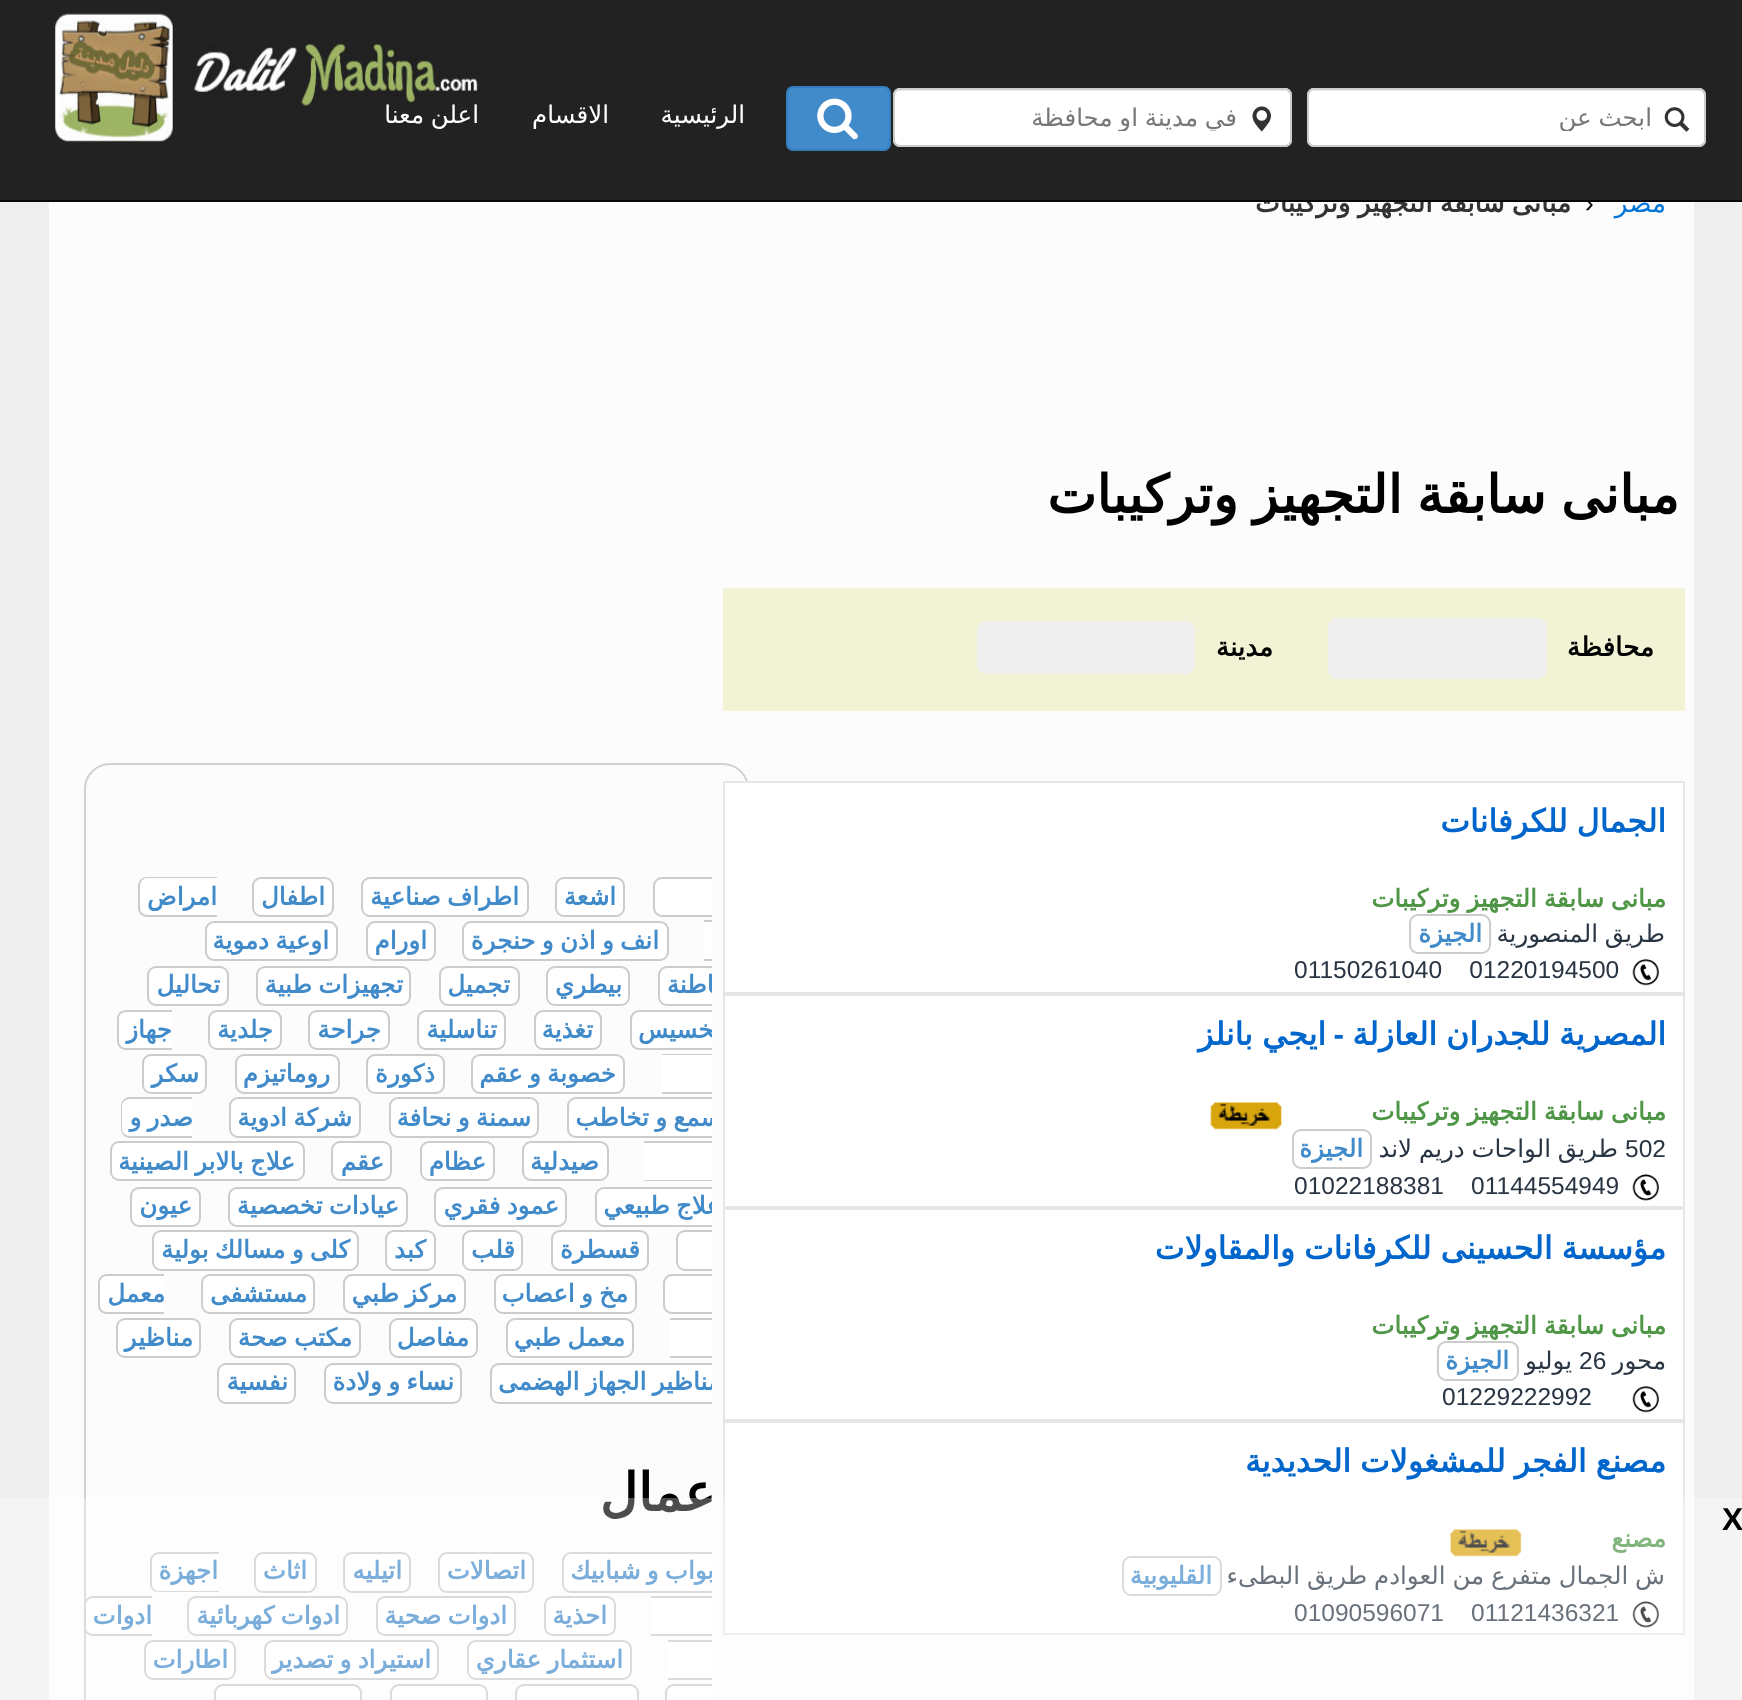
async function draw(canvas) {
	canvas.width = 1742;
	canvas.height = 1700;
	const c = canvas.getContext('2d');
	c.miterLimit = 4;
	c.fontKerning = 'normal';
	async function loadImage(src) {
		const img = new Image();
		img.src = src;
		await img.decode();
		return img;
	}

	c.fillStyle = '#efefef';
	c.fillRect(0, 0, 1742, 1700);
	c.fillStyle = '#fcfcfc';
	c.fillRect(49, 202, 1645, 1498);
	c.beginPath();
	c.roundRect(85, 764, 663, 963, 25);
	c.strokeStyle = '#d1d1d1';
	c.lineWidth = 2;
	c.stroke();
	c.fillStyle = '#fff';
	c.beginPath();
	c.roundRect(654, 878, 75, 38, 8);
	c.fill();
	c.strokeStyle = '#ccc';
	c.stroke();
	c.fillRect(704, 922, 8, 37);
	c.fillStyle = '#ccc';
	c.beginPath();
	c.moveTo(704, 920);
	c.lineTo(725, 920);
	c.bezierCurveTo(741, 920, 738, 928, 738, 941);
	c.bezierCurveTo(738, 954, 741, 961, 725, 961);
	c.lineTo(704, 961);
	c.closePath();
	c.moveTo(704, 922);
	c.lineTo(730, 922);
	c.bezierCurveTo(734, 922, 737, 925, 737, 929);
	c.lineTo(737, 952);
	c.bezierCurveTo(737, 956, 734, 959, 730, 959);
	c.lineTo(704, 959);
	c.closePath();
	c.fill('evenodd');
	c.fillStyle = '#fff';
	c.beginPath();
	c.roundRect(659, 967, 70, 38, 8);
	c.fill();
	c.stroke();
	c.direction = 'rtl';
	c.font = 'bold 24.5px DejaVu Sans';
	c.fillStyle = '#428bca';
	c.fillText('باطنة', 721, 993);
	c.fillStyle = '#fff';
	c.beginPath();
	c.roundRect(631, 1011, 98, 38, 8);
	c.fill();
	c.stroke();
	c.fillStyle = '#428bca';
	c.fillText('تخسيس', 721, 1038);
	c.fillStyle = '#fff';
	c.fillRect(662, 1055, 50, 37);
	c.fillStyle = '#ccc';
	c.beginPath();
	c.moveTo(662, 1054);
	c.lineTo(730, 1054);
	c.bezierCurveTo(735, 1054, 738, 1057, 738, 1062);
	c.lineTo(738, 1085);
	c.bezierCurveTo(738, 1090, 735, 1094, 730, 1094);
	c.lineTo(662, 1094);
	c.closePath();
	c.moveTo(662, 1055);
	c.lineTo(730, 1055);
	c.bezierCurveTo(734, 1055, 737, 1058, 737, 1062);
	c.lineTo(737, 1085);
	c.bezierCurveTo(737, 1089, 734, 1092, 730, 1092);
	c.lineTo(662, 1092);
	c.closePath();
	c.fill('evenodd');
	c.fillStyle = '#fff';
	c.beginPath();
	c.roundRect(568, 1098, 161, 39, 8);
	c.fill();
	c.stroke();
	c.wordSpacing = '-1.5px';
	c.fillStyle = '#428bca';
	c.fillText('سمع و تخاطب', 721, 1126);
	c.fillStyle = '#fff';
	c.fillRect(644, 1143, 68, 37);
	c.fillStyle = '#ccc';
	c.beginPath();
	c.moveTo(644, 1141);
	c.lineTo(730, 1141);
	c.bezierCurveTo(735, 1141, 738, 1145, 738, 1150);
	c.lineTo(738, 1172);
	c.bezierCurveTo(738, 1177, 735, 1181, 730, 1181);
	c.lineTo(644, 1181);
	c.closePath();
	c.moveTo(644, 1143);
	c.lineTo(730, 1143);
	c.bezierCurveTo(734, 1143, 737, 1146, 737, 1150);
	c.lineTo(737, 1172);
	c.bezierCurveTo(737, 1176, 734, 1180, 730, 1180);
	c.lineTo(644, 1180);
	c.closePath();
	c.fill('evenodd');
	c.fillStyle = '#fff';
	c.beginPath();
	c.roundRect(596, 1188, 133, 38, 8);
	c.fill();
	c.stroke();
	c.fillStyle = '#428bca';
	c.fillText('علاج طبيعي', 721, 1214);
	c.fillStyle = '#fff';
	c.beginPath();
	c.roundRect(677, 1231, 52, 39, 8);
	c.fill();
	c.stroke();
	c.beginPath();
	c.roundRect(664, 1275, 65, 38, 8);
	c.fill();
	c.stroke();
	c.fillRect(670, 1320, 42, 36);
	c.fillStyle = '#ccc';
	c.beginPath();
	c.moveTo(670, 1318);
	c.lineTo(730, 1318);
	c.bezierCurveTo(735, 1318, 738, 1322, 738, 1326);
	c.lineTo(738, 1349);
	c.bezierCurveTo(738, 1354, 735, 1358, 730, 1358);
	c.lineTo(670, 1358);
	c.closePath();
	c.moveTo(670, 1320);
	c.lineTo(730, 1320);
	c.bezierCurveTo(734, 1320, 737, 1323, 737, 1326);
	c.lineTo(737, 1349);
	c.bezierCurveTo(737, 1353, 734, 1356, 730, 1356);
	c.lineTo(670, 1356);
	c.closePath();
	c.fill('evenodd');
	c.fillStyle = '#fff';
	c.beginPath();
	c.roundRect(491, 1364, 238, 39, 8);
	c.fill();
	c.stroke();
	c.fillStyle = '#428bca';
	c.fillText('مناظير الجهاز الهضمى', 721, 1390);
	c.wordSpacing = '0px';
	c.font = 'bold 52.5px DejaVu Sans';
	c.fillStyle = '#000';
	c.fillText('اعمال', 730, 1511);
	c.fillStyle = '#fff';
	c.beginPath();
	c.roundRect(563, 1553, 166, 39, 8);
	c.fill();
	c.stroke();
	c.wordSpacing = '-1.5px';
	c.font = 'bold 24.5px DejaVu Sans';
	c.fillStyle = '#428bca';
	c.fillText('ابواب و شبابيك', 721, 1579);
	c.fillStyle = '#fff';
	c.fillRect(651, 1598, 61, 36);
	c.fillStyle = '#ccc';
	c.beginPath();
	c.moveTo(651, 1596);
	c.lineTo(730, 1596);
	c.bezierCurveTo(735, 1596, 738, 1600, 738, 1605);
	c.lineTo(738, 1628);
	c.bezierCurveTo(738, 1632, 735, 1636, 730, 1636);
	c.lineTo(651, 1636);
	c.closePath();
	c.moveTo(651, 1598);
	c.lineTo(730, 1598);
	c.bezierCurveTo(734, 1598, 737, 1601, 737, 1605);
	c.lineTo(737, 1628);
	c.bezierCurveTo(737, 1631, 734, 1634, 730, 1634);
	c.lineTo(651, 1634);
	c.closePath();
	c.fill('evenodd');
	c.fillStyle = '#fff';
	c.fillRect(669, 1642, 43, 36);
	c.fillStyle = '#ccc';
	c.beginPath();
	c.moveTo(668, 1640);
	c.lineTo(730, 1640);
	c.bezierCurveTo(735, 1640, 738, 1644, 738, 1648);
	c.lineTo(738, 1671);
	c.bezierCurveTo(738, 1676, 735, 1680, 730, 1680);
	c.lineTo(668, 1680);
	c.closePath();
	c.moveTo(668, 1642);
	c.lineTo(730, 1642);
	c.bezierCurveTo(734, 1642, 737, 1645, 737, 1648);
	c.lineTo(737, 1671);
	c.bezierCurveTo(737, 1675, 734, 1678, 730, 1678);
	c.lineTo(668, 1678);
	c.closePath();
	c.fill('evenodd');
	c.fillStyle = '#fff';
	c.beginPath();
	c.roundRect(666, 1685, 63, 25, 8);
	c.fill();
	c.stroke();
	c.fillStyle = '#fcfcfc';
	c.fillRect(712, 781, 37, 919);
	c.fillStyle = '#fff';
	c.beginPath();
	c.rect(724, 1422, 960, 212);
	c.fill();
	c.strokeStyle = '#e6e6e6';
	c.stroke();
	c.wordSpacing = '0px';
	c.fillStyle = '#509647';
	c.fillText('مصنع', 1666, 1547);
	c.drawImage(await loadImage('img8.png'), 1450, 1529, 72, 28);
	c.wordSpacing = '-1px';
	c.font = '24.5px DejaVu Sans';
	c.fillStyle = '#293543';
	c.fillText('ش الجمال متفرع من العوادم طريق البطىء', 1665, 1584);
	c.beginPath();
	c.roundRect(1123, 1557, 98, 38, 8);
	c.strokeStyle = '#ccc';
	c.stroke();
	c.wordSpacing = '0px';
	c.font = 'bold 24.5px DejaVu Sans';
	c.fillStyle = '#428bca';
	c.fillText('القليوبية', 1212, 1584);
	c.drawImage(await loadImage('img7.png'), 1632, 1601, 27, 27);
	c.direction = 'ltr';
	c.font = '24.5px Liberation Sans';
	c.fillStyle = '#293543';
	c.fillText('01090596071    01121436321', 1294, 1621);
	c.fillStyle = '#fff';
	c.beginPath();
	c.roundRect(439, 1553, 94, 39, 8);
	c.fill();
	c.stroke();
	c.direction = 'rtl';
	c.font = 'bold 24.5px DejaVu Sans';
	c.fillStyle = '#428bca';
	c.fillText('اتصالات', 526, 1579);
	c.fillStyle = '#fff';
	c.beginPath();
	c.roundRect(344, 1553, 66, 39, 8);
	c.fill();
	c.stroke();
	c.fillStyle = '#428bca';
	c.fillText('اتيليه', 402, 1579);
	c.fillStyle = '#fff';
	c.beginPath();
	c.roundRect(255, 1553, 61, 39, 8);
	c.fill();
	c.stroke();
	c.fillStyle = '#428bca';
	c.fillText('اثاث', 307, 1579);
	c.fillStyle = '#fff';
	c.beginPath();
	c.roundRect(151, 1552, 68, 41, [9, 0, 0, 9]);
	c.fill();
	c.fillStyle = '#ccc';
	c.beginPath();
	c.moveTo(159, 1552);
	c.lineTo(219, 1552);
	c.lineTo(219, 1592);
	c.lineTo(159, 1592);
	c.bezierCurveTo(154, 1592, 150, 1589, 150, 1584);
	c.lineTo(150, 1561);
	c.bezierCurveTo(150, 1556, 154, 1552, 159, 1552);
	c.closePath();
	c.moveTo(159, 1554);
	c.lineTo(219, 1554);
	c.lineTo(219, 1591);
	c.lineTo(159, 1591);
	c.bezierCurveTo(155, 1591, 152, 1588, 152, 1584);
	c.lineTo(152, 1561);
	c.bezierCurveTo(152, 1557, 155, 1554, 159, 1554);
	c.closePath();
	c.fill('evenodd');
	c.fillStyle = '#428bca';
	c.fillText('اجهزة', 218, 1579);
	c.fillStyle = '#fff';
	c.beginPath();
	c.roundRect(545, 1597, 70, 38, 8);
	c.fill();
	c.stroke();
	c.fillStyle = '#428bca';
	c.fillText('احذية', 607, 1624);
	c.fillStyle = '#fff';
	c.beginPath();
	c.roundRect(377, 1597, 138, 38, 8);
	c.fill();
	c.stroke();
	c.wordSpacing = '-1.5px';
	c.fillStyle = '#428bca';
	c.fillText('ادوات صحية', 507, 1624);
	c.fillStyle = '#fff';
	c.beginPath();
	c.roundRect(188, 1597, 159, 38, 8);
	c.fill();
	c.stroke();
	c.fillStyle = '#428bca';
	c.fillText('ادوات كهربائية', 340, 1624);
	c.fillStyle = '#fff';
	c.beginPath();
	c.roundRect(84, 1596, 68, 40, [9, 0, 0, 9]);
	c.fill();
	c.fillStyle = '#ccc';
	c.beginPath();
	c.moveTo(93, 1596);
	c.lineTo(152, 1596);
	c.lineTo(152, 1636);
	c.lineTo(93, 1636);
	c.bezierCurveTo(88, 1636, 84, 1632, 84, 1628);
	c.lineTo(84, 1605);
	c.bezierCurveTo(84, 1600, 88, 1596, 93, 1596);
	c.closePath();
	c.moveTo(93, 1598);
	c.lineTo(152, 1598);
	c.lineTo(152, 1634);
	c.lineTo(93, 1634);
	c.bezierCurveTo(89, 1634, 86, 1631, 86, 1628);
	c.lineTo(86, 1605);
	c.bezierCurveTo(86, 1601, 89, 1598, 93, 1598);
	c.closePath();
	c.fill('evenodd');
	c.wordSpacing = '0px';
	c.fillStyle = '#428bca';
	c.fillText('ادوات', 152, 1624);
	c.fillStyle = '#fff';
	c.beginPath();
	c.roundRect(468, 1641, 163, 38, 8);
	c.fill();
	c.stroke();
	c.wordSpacing = '-1.5px';
	c.fillStyle = '#428bca';
	c.fillText('استثمار عقاري', 623, 1668);
	c.fillStyle = '#fff';
	c.beginPath();
	c.roundRect(265, 1641, 173, 38, 8);
	c.fill();
	c.stroke();
	c.fillStyle = '#428bca';
	c.fillText('استيراد و تصدير', 431, 1668);
	c.fillStyle = '#fff';
	c.beginPath();
	c.roundRect(145, 1641, 90, 38, 8);
	c.fill();
	c.stroke();
	c.wordSpacing = '0px';
	c.fillStyle = '#428bca';
	c.fillText('اطارات', 228, 1668);
	c.fillStyle = '#fff';
	c.beginPath();
	c.roundRect(516, 1685, 122, 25, 8);
	c.fill();
	c.stroke();
	c.beginPath();
	c.roundRect(391, 1685, 96, 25, 8);
	c.fill();
	c.stroke();
	c.beginPath();
	c.roundRect(215, 1685, 146, 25, 8);
	c.fill();
	c.stroke();
	c.fillStyle = '#ffffff4d';
	c.fillRect(0, 1498, 1742, 202);
	c.direction = 'ltr';
	c.font = 'bold 31.5px Liberation Sans';
	c.fillStyle = '#000';
	c.fillText('X', 1722, 1530);
	c.font = '26.25px Liberation Sans';
	c.fillText('›', 1585, 212);
	c.wordSpacing = '-1px';
	c.direction = 'rtl';
	c.font = 'bold 26.25px DejaVu Sans';
	c.fillStyle = '#333';
	c.fillText('مبانى سابقة التجهيز وتركيبات', 1571, 212);
	c.fillStyle = '#222';
	c.fillRect(0, 0, 1742, 200);
	c.fillStyle = '#080808';
	c.fillRect(0, 200, 1742, 2);
	c.fillStyle = '#fff';
	c.beginPath();
	c.roundRect(1307, 88, 399, 59, 7);
	c.fill();
	c.fillStyle = '#ececec';
	c.beginPath();
	c.moveTo(1314, 91);
	c.lineTo(1699, 91);
	c.bezierCurveTo(1702, 91, 1704, 93, 1704, 96);
	c.lineTo(1704, 143);
	c.bezierCurveTo(1705, 142, 1705, 141, 1705, 140);
	c.lineTo(1705, 94);
	c.bezierCurveTo(1705, 91, 1703, 89, 1700, 89);
	c.lineTo(1314, 89);
	c.bezierCurveTo(1311, 89, 1309, 91, 1309, 94);
	c.lineTo(1309, 96);
	c.bezierCurveTo(1309, 93, 1311, 91, 1314, 91);
	c.closePath();
	c.fill();
	c.beginPath();
	c.roundRect(1308, 89, 397, 57, 6);
	c.stroke();
	c.drawImage(await loadImage('img1.png'), 1664, 107, 26, 25);
	c.save();
	c.beginPath();
	c.rect(1330, 103, 322, 28);
	c.clip();
	c.font = '24.5px DejaVu Sans';
	c.fillStyle = '#777';
	c.fillText('ابحث عن', 1652, 126);
	c.restore();
	c.fillStyle = '#fff';
	c.beginPath();
	c.roundRect(893, 88, 399, 59, 7);
	c.fill();
	c.fillStyle = '#ececec';
	c.beginPath();
	c.moveTo(900, 91);
	c.lineTo(1284, 91);
	c.bezierCurveTo(1287, 91, 1290, 93, 1290, 96);
	c.lineTo(1290, 94);
	c.bezierCurveTo(1290, 91, 1288, 89, 1285, 89);
	c.lineTo(899, 89);
	c.bezierCurveTo(896, 89, 894, 91, 894, 94);
	c.lineTo(894, 96);
	c.bezierCurveTo(894, 93, 897, 91, 900, 91);
	c.closePath();
	c.fill();
	c.beginPath();
	c.roundRect(894, 89, 397, 57, 6);
	c.stroke();
	c.drawImage(await loadImage('img2.png'), 1252, 106, 19, 26);
	c.save();
	c.beginPath();
	c.rect(915, 103, 322, 28);
	c.clip();
	c.font = '24.5px DejaVu Sans';
	c.fillStyle = '#777';
	c.fillText('في مدينة او محافظة', 1237, 126);
	c.restore();
	c.fillStyle = '#428bca';
	c.beginPath();
	c.roundRect(787, 87, 103, 63, 6);
	c.fill();
	c.strokeStyle = '#357ebd';
	c.stroke();
	c.drawImage(await loadImage('img3.png'), 817, 98, 41, 42);
	c.wordSpacing = '0px';
	c.font = '24.5px DejaVu Sans';
	c.fillStyle = '#fff';
	c.fillText('الرئيسية', 745, 123);
	c.fillText('الاقسام', 609, 123);
	c.drawImage(await loadImage('img4.png'), 51, 13, 427, 130);
	c.wordSpacing = '-1px';
	c.fillText('اعلن معنا', 479, 123);
	c.wordSpacing = '0px';
	c.font = '26.25px DejaVu Sans';
	c.fillStyle = '#0275d8';
	c.fillText('مصر', 1666, 212);
	c.wordSpacing = '-2px';
	c.font = 'bold 52.5px DejaVu Sans';
	c.fillStyle = '#000';
	c.fillText('مبانى سابقة التجهيز وتركيبات', 1679, 513);
	c.fillStyle = '#f2f2d5';
	c.fillRect(723, 588, 962, 123);
	c.wordSpacing = '0px';
	c.font = 'bold 26.25px DejaVu Sans';
	c.fillStyle = '#000';
	c.fillText('محافظة', 1654, 656);
	c.fillStyle = '#efefef';
	c.beginPath();
	c.roundRect(1330, 620, 215, 57, 7);
	c.fill();
	c.strokeStyle = '#f0f0f0';
	c.lineWidth = 4;
	c.stroke();
	c.fillStyle = '#000';
	c.fillText('مدينة', 1273, 656);
	c.fillStyle = '#efefef';
	c.beginPath();
	c.roundRect(979, 623, 214, 49, 7);
	c.fill();
	c.stroke();
	c.fillStyle = '#fff';
	c.beginPath();
	c.rect(724, 782, 960, 211);
	c.fill();
	c.strokeStyle = '#e6e6e6';
	c.lineWidth = 2;
	c.stroke();
	c.wordSpacing = '-1px';
	c.font = 'bold 31.5px DejaVu Sans';
	c.fillStyle = '#06c';
	c.fillText('الجمال للكرفانات', 1666, 832);
	c.font = 'bold 24.5px DejaVu Sans';
	c.fillStyle = '#509647';
	c.fillText('مبانى سابقة التجهيز وتركيبات', 1666, 907);
	c.font = '24.5px DejaVu Sans';
	c.fillStyle = '#293543';
	c.fillText('طريق المنصورية', 1665, 942);
	c.beginPath();
	c.roundRect(1410, 915, 80, 38, 8);
	c.strokeStyle = '#ccc';
	c.stroke();
	c.wordSpacing = '0px';
	c.font = 'bold 24.5px DejaVu Sans';
	c.fillStyle = '#428bca';
	c.fillText('الجيزة', 1482, 942);
	c.drawImage(await loadImage('img5.png'), 1632, 959, 27, 27);
	c.direction = 'ltr';
	c.font = '24.5px Liberation Sans';
	c.fillStyle = '#293543';
	c.fillText('01150261040    01220194500', 1294, 978);
	c.fillStyle = '#fff';
	c.beginPath();
	c.rect(724, 995, 960, 212);
	c.fill();
	c.strokeStyle = '#e6e6e6';
	c.stroke();
	c.wordSpacing = '-1px';
	c.direction = 'rtl';
	c.font = 'bold 31.5px DejaVu Sans';
	c.fillStyle = '#06c';
	c.fillText('المصرية للجدران العازلة', 1666, 1045);
	c.wordSpacing = '0px';
	c.font = 'bold 31.5px Liberation Sans';
	c.fillText('-', 1344, 1045);
	c.wordSpacing = '-1px';
	c.font = 'bold 31.5px DejaVu Sans';
	c.fillText('ايجي بانلز', 1326, 1045);
	c.font = 'bold 24.5px DejaVu Sans';
	c.fillStyle = '#509647';
	c.fillText('مبانى سابقة التجهيز وتركيبات', 1666, 1120);
	c.drawImage(await loadImage('img6.png'), 1210, 1102, 72, 28);
	c.wordSpacing = '0px';
	c.direction = 'ltr';
	c.font = '24.5px Liberation Sans';
	c.fillStyle = '#293543';
	c.fillText('502', 1625, 1157);
	c.wordSpacing = '-1px';
	c.direction = 'rtl';
	c.font = '24.5px DejaVu Sans';
	c.fillText('طريق الواحات دريم لاند', 1618, 1157);
	c.beginPath();
	c.roundRect(1293, 1130, 78, 38, 8);
	c.strokeStyle = '#ccc';
	c.stroke();
	c.wordSpacing = '0px';
	c.font = 'bold 24.5px DejaVu Sans';
	c.fillStyle = '#428bca';
	c.fillText('الجيزة', 1363, 1157);
	c.drawImage(await loadImage('img7.png'), 1632, 1174, 27, 27);
	c.direction = 'ltr';
	c.font = '24.5px Liberation Sans';
	c.fillStyle = '#293543';
	c.fillText('01022188381    01144554949', 1294, 1194);
	c.fillStyle = '#fff';
	c.beginPath();
	c.rect(724, 1209, 960, 211);
	c.fill();
	c.strokeStyle = '#e6e6e6';
	c.stroke();
	c.wordSpacing = '-1px';
	c.direction = 'rtl';
	c.font = 'bold 31.5px DejaVu Sans';
	c.fillStyle = '#06c';
	c.fillText('مؤسسة الحسينى للكرفانات والمقاولات', 1666, 1259);
	c.font = 'bold 24.5px DejaVu Sans';
	c.fillStyle = '#509647';
	c.fillText('مبانى سابقة التجهيز وتركيبات', 1666, 1334);
	c.wordSpacing = '0px';
	c.font = '24.5px DejaVu Sans';
	c.fillStyle = '#293543';
	c.fillText('محور', 1666, 1369);
	c.direction = 'ltr';
	c.font = '24.5px Liberation Sans';
	c.fillText('26', 1579, 1369);
	c.direction = 'rtl';
	c.font = '24.5px DejaVu Sans';
	c.fillText('يوليو', 1572, 1369);
	c.beginPath();
	c.roundRect(1438, 1342, 80, 38, 8);
	c.strokeStyle = '#ccc';
	c.stroke();
	c.font = 'bold 24.5px DejaVu Sans';
	c.fillStyle = '#428bca';
	c.fillText('الجيزة', 1509, 1369);
	c.drawImage(await loadImage('img5.png'), 1632, 1386, 27, 27);
	c.direction = 'ltr';
	c.font = '24.5px Liberation Sans';
	c.fillStyle = '#293543';
	c.fillText('01229222992', 1442, 1405);
	c.wordSpacing = '-1px';
	c.direction = 'rtl';
	c.font = 'bold 31.5px DejaVu Sans';
	c.fillStyle = '#06c';
	c.fillText('مصنع الفجر للمشغولات الحديدية', 1666, 1472);
	c.fillStyle = '#fff';
	c.beginPath();
	c.roundRect(556, 878, 68, 38, 8);
	c.fill();
	c.stroke();
	c.wordSpacing = '0px';
	c.font = 'bold 24.5px DejaVu Sans';
	c.fillStyle = '#428bca';
	c.fillText('اشعة', 616, 905);
	c.fillStyle = '#fff';
	c.beginPath();
	c.roundRect(362, 878, 166, 38, 8);
	c.fill();
	c.stroke();
	c.wordSpacing = '-1.5px';
	c.fillStyle = '#428bca';
	c.fillText('اطراف صناعية', 519, 905);
	c.fillStyle = '#fff';
	c.beginPath();
	c.roundRect(253, 878, 80, 38, 8);
	c.fill();
	c.stroke();
	c.wordSpacing = '0px';
	c.fillStyle = '#428bca';
	c.fillText('اطفال', 325, 905);
	c.fillStyle = '#fff';
	c.beginPath();
	c.roundRect(138, 877, 79, 40, [9, 0, 0, 9]);
	c.fill();
	c.fillStyle = '#ccc';
	c.beginPath();
	c.moveTo(147, 877);
	c.lineTo(217, 877);
	c.lineTo(217, 917);
	c.lineTo(147, 917);
	c.bezierCurveTo(142, 917, 138, 913, 138, 908);
	c.lineTo(138, 886);
	c.bezierCurveTo(138, 881, 142, 877, 147, 877);
	c.closePath();
	c.moveTo(147, 878);
	c.lineTo(217, 878);
	c.lineTo(217, 915);
	c.lineTo(147, 915);
	c.bezierCurveTo(143, 915, 140, 912, 140, 908);
	c.lineTo(140, 886);
	c.bezierCurveTo(140, 882, 143, 878, 147, 878);
	c.closePath();
	c.fill('evenodd');
	c.fillStyle = '#428bca';
	c.fillText('امراض', 217, 905);
	c.fillStyle = '#fff';
	c.beginPath();
	c.roundRect(463, 922, 205, 38, 8);
	c.fill();
	c.stroke();
	c.wordSpacing = '-1.5px';
	c.fillStyle = '#428bca';
	c.fillText('انف و اذن و حنجرة', 659, 949);
	c.fillStyle = '#fff';
	c.beginPath();
	c.roundRect(367, 922, 68, 38, 8);
	c.fill();
	c.stroke();
	c.wordSpacing = '0px';
	c.fillStyle = '#428bca';
	c.fillText('اورام', 427, 949);
	c.fillStyle = '#fff';
	c.beginPath();
	c.roundRect(206, 922, 131, 38, 8);
	c.fill();
	c.stroke();
	c.wordSpacing = '-1.5px';
	c.fillStyle = '#428bca';
	c.fillText('اوعية دموية', 329, 949);
	c.fillStyle = '#fff';
	c.beginPath();
	c.roundRect(547, 967, 82, 38, 8);
	c.fill();
	c.stroke();
	c.wordSpacing = '0px';
	c.fillStyle = '#428bca';
	c.fillText('بيطري', 622, 993);
	c.fillStyle = '#fff';
	c.beginPath();
	c.roundRect(440, 967, 79, 38, 8);
	c.fill();
	c.stroke();
	c.fillStyle = '#428bca';
	c.fillText('تجميل', 510, 993);
	c.fillStyle = '#fff';
	c.beginPath();
	c.roundRect(257, 967, 153, 38, 8);
	c.fill();
	c.stroke();
	c.wordSpacing = '-1.5px';
	c.fillStyle = '#428bca';
	c.fillText('تجهيزات طبية', 403, 993);
	c.fillStyle = '#fff';
	c.beginPath();
	c.roundRect(148, 967, 80, 38, 8);
	c.fill();
	c.stroke();
	c.wordSpacing = '0px';
	c.fillStyle = '#428bca';
	c.fillText('تحاليل', 220, 993);
	c.fillStyle = '#fff';
	c.beginPath();
	c.roundRect(535, 1011, 66, 38, 8);
	c.fill();
	c.stroke();
	c.fillStyle = '#428bca';
	c.fillText('تغذية', 593, 1038);
	c.fillStyle = '#fff';
	c.beginPath();
	c.roundRect(418, 1011, 87, 38, 8);
	c.fill();
	c.stroke();
	c.fillStyle = '#428bca';
	c.fillText('تناسلية', 497, 1038);
	c.fillStyle = '#fff';
	c.beginPath();
	c.roundRect(309, 1011, 80, 38, 8);
	c.fill();
	c.stroke();
	c.fillStyle = '#428bca';
	c.fillText('جراحة', 381, 1038);
	c.fillStyle = '#fff';
	c.beginPath();
	c.roundRect(209, 1011, 72, 38, 8);
	c.fill();
	c.stroke();
	c.fillStyle = '#428bca';
	c.fillText('جلدية', 273, 1038);
	c.fillStyle = '#fff';
	c.beginPath();
	c.roundRect(117, 1010, 55, 40, [9, 0, 0, 9]);
	c.fill();
	c.fillStyle = '#ccc';
	c.beginPath();
	c.moveTo(126, 1010);
	c.lineTo(172, 1010);
	c.lineTo(172, 1050);
	c.lineTo(126, 1050);
	c.bezierCurveTo(121, 1050, 117, 1046, 117, 1041);
	c.lineTo(117, 1018);
	c.bezierCurveTo(117, 1014, 121, 1010, 126, 1010);
	c.closePath();
	c.moveTo(126, 1012);
	c.lineTo(172, 1012);
	c.lineTo(172, 1048);
	c.lineTo(126, 1048);
	c.bezierCurveTo(122, 1048, 119, 1045, 119, 1041);
	c.lineTo(119, 1018);
	c.bezierCurveTo(119, 1015, 122, 1012, 126, 1012);
	c.closePath();
	c.fill('evenodd');
	c.fillStyle = '#428bca';
	c.fillText('جهاز', 172, 1038);
	c.fillStyle = '#fff';
	c.beginPath();
	c.roundRect(472, 1055, 152, 38, 8);
	c.fill();
	c.stroke();
	c.wordSpacing = '-1.5px';
	c.fillStyle = '#428bca';
	c.fillText('خصوبة و عقم', 616, 1082);
	c.fillStyle = '#fff';
	c.beginPath();
	c.roundRect(367, 1055, 77, 38, 8);
	c.fill();
	c.stroke();
	c.wordSpacing = '0px';
	c.fillStyle = '#428bca';
	c.fillText('ذكورة', 435, 1082);
	c.fillStyle = '#fff';
	c.beginPath();
	c.roundRect(236, 1055, 103, 38, 8);
	c.fill();
	c.stroke();
	c.fillStyle = '#428bca';
	c.fillText('روماتيزم', 330, 1082);
	c.fillStyle = '#fff';
	c.beginPath();
	c.roundRect(143, 1055, 63, 38, 8);
	c.fill();
	c.stroke();
	c.fillStyle = '#428bca';
	c.fillText('سكر', 199, 1082);
	c.fillStyle = '#fff';
	c.beginPath();
	c.roundRect(390, 1098, 148, 39, 8);
	c.fill();
	c.stroke();
	c.wordSpacing = '-1.5px';
	c.fillStyle = '#428bca';
	c.fillText('سمنة و نحافة', 531, 1126);
	c.fillStyle = '#fff';
	c.beginPath();
	c.roundRect(230, 1098, 130, 39, 8);
	c.fill();
	c.stroke();
	c.fillStyle = '#428bca';
	c.fillText('شركة ادوية', 352, 1126);
	c.fillStyle = '#fff';
	c.beginPath();
	c.roundRect(121, 1097, 72, 41, [9, 0, 0, 9]);
	c.fill();
	c.fillStyle = '#ccc';
	c.beginPath();
	c.moveTo(130, 1097);
	c.lineTo(192, 1097);
	c.lineTo(192, 1138);
	c.lineTo(130, 1138);
	c.bezierCurveTo(125, 1138, 121, 1134, 121, 1129);
	c.lineTo(121, 1106);
	c.bezierCurveTo(121, 1101, 125, 1097, 130, 1097);
	c.closePath();
	c.moveTo(130, 1099);
	c.lineTo(192, 1099);
	c.lineTo(192, 1136);
	c.lineTo(130, 1136);
	c.bezierCurveTo(126, 1136, 122, 1133, 122, 1129);
	c.lineTo(122, 1106);
	c.bezierCurveTo(122, 1102, 126, 1099, 130, 1099);
	c.closePath();
	c.fill('evenodd');
	c.fillStyle = '#428bca';
	c.fillText('صدر و', 193, 1126);
	c.fillStyle = '#fff';
	c.beginPath();
	c.roundRect(523, 1142, 85, 38, 8);
	c.fill();
	c.stroke();
	c.wordSpacing = '0px';
	c.fillStyle = '#428bca';
	c.fillText('صيدلية', 599, 1170);
	c.fillStyle = '#fff';
	c.beginPath();
	c.roundRect(421, 1142, 73, 38, 8);
	c.fill();
	c.stroke();
	c.fillStyle = '#428bca';
	c.fillText('عظام', 486, 1170);
	c.fillStyle = '#fff';
	c.beginPath();
	c.roundRect(332, 1142, 59, 38, 8);
	c.fill();
	c.stroke();
	c.fillStyle = '#428bca';
	c.fillText('عقم', 384, 1170);
	c.fillStyle = '#fff';
	c.beginPath();
	c.roundRect(111, 1142, 193, 38, 8);
	c.fill();
	c.stroke();
	c.wordSpacing = '-1.5px';
	c.fillStyle = '#428bca';
	c.fillText('علاج بالابر الصينية', 295, 1170);
	c.fillStyle = '#fff';
	c.beginPath();
	c.roundRect(435, 1188, 131, 38, 8);
	c.fill();
	c.stroke();
	c.fillStyle = '#428bca';
	c.fillText('عمود فقري', 559, 1214);
	c.fillStyle = '#fff';
	c.beginPath();
	c.roundRect(229, 1188, 178, 38, 8);
	c.fill();
	c.stroke();
	c.fillStyle = '#428bca';
	c.fillText('عيادات تخصصية', 399, 1214);
	c.fillStyle = '#fff';
	c.beginPath();
	c.roundRect(131, 1188, 69, 38, 8);
	c.fill();
	c.stroke();
	c.wordSpacing = '0px';
	c.fillStyle = '#428bca';
	c.fillText('عيون', 192, 1214);
	c.fillStyle = '#fff';
	c.beginPath();
	c.roundRect(552, 1231, 96, 39, 8);
	c.fill();
	c.stroke();
	c.fillStyle = '#428bca';
	c.fillText('قسطرة', 640, 1258);
	c.fillStyle = '#fff';
	c.beginPath();
	c.roundRect(463, 1231, 59, 39, 8);
	c.fill();
	c.stroke();
	c.fillStyle = '#428bca';
	c.fillText('قلب', 515, 1258);
	c.fillStyle = '#fff';
	c.beginPath();
	c.roundRect(386, 1231, 49, 39, 8);
	c.fill();
	c.stroke();
	c.fillStyle = '#428bca';
	c.fillText('كبد', 426, 1258);
	c.fillStyle = '#fff';
	c.beginPath();
	c.roundRect(153, 1231, 205, 39, 8);
	c.fill();
	c.stroke();
	c.wordSpacing = '-1.5px';
	c.fillStyle = '#428bca';
	c.fillText('كلى و مسالك بولية', 350, 1258);
	c.fillStyle = '#fff';
	c.beginPath();
	c.roundRect(495, 1275, 141, 38, 8);
	c.fill();
	c.stroke();
	c.fillStyle = '#428bca';
	c.fillText('مخ و اعصاب', 628, 1302);
	c.fillStyle = '#fff';
	c.beginPath();
	c.roundRect(344, 1275, 121, 38, 8);
	c.fill();
	c.stroke();
	c.fillStyle = '#428bca';
	c.fillText('مركز طبي', 457, 1302);
	c.fillStyle = '#fff';
	c.beginPath();
	c.roundRect(202, 1275, 112, 38, 8);
	c.fill();
	c.stroke();
	c.wordSpacing = '0px';
	c.fillStyle = '#428bca';
	c.fillText('مستشفى', 307, 1302);
	c.fillStyle = '#fff';
	c.beginPath();
	c.roundRect(98, 1274, 67, 40, [9, 0, 0, 9]);
	c.fill();
	c.fillStyle = '#ccc';
	c.beginPath();
	c.moveTo(107, 1274);
	c.lineTo(164, 1274);
	c.lineTo(164, 1314);
	c.lineTo(107, 1314);
	c.bezierCurveTo(102, 1314, 98, 1310, 98, 1306);
	c.lineTo(98, 1283);
	c.bezierCurveTo(98, 1278, 102, 1274, 107, 1274);
	c.closePath();
	c.moveTo(107, 1276);
	c.lineTo(164, 1276);
	c.lineTo(164, 1312);
	c.lineTo(107, 1312);
	c.bezierCurveTo(103, 1312, 100, 1309, 100, 1306);
	c.lineTo(100, 1283);
	c.bezierCurveTo(100, 1279, 103, 1276, 107, 1276);
	c.closePath();
	c.fill('evenodd');
	c.fillStyle = '#428bca';
	c.fillText('معمل', 165, 1302);
	c.fillStyle = '#fff';
	c.beginPath();
	c.roundRect(507, 1319, 126, 38, 8);
	c.fill();
	c.stroke();
	c.wordSpacing = '-1.5px';
	c.fillStyle = '#428bca';
	c.fillText('معمل طبي', 625, 1346);
	c.fillStyle = '#fff';
	c.beginPath();
	c.roundRect(390, 1319, 87, 38, 8);
	c.fill();
	c.stroke();
	c.wordSpacing = '0px';
	c.fillStyle = '#428bca';
	c.fillText('مفاصل', 469, 1346);
	c.fillStyle = '#fff';
	c.beginPath();
	c.roundRect(230, 1319, 130, 38, 8);
	c.fill();
	c.stroke();
	c.wordSpacing = '-1.5px';
	c.fillStyle = '#428bca';
	c.fillText('مكتب صحة', 352, 1346);
	c.fillStyle = '#fff';
	c.beginPath();
	c.roundRect(117, 1319, 83, 38, 8);
	c.fill();
	c.stroke();
	c.wordSpacing = '0px';
	c.fillStyle = '#428bca';
	c.fillText('مناظير', 193, 1346);
	c.fillStyle = '#fff';
	c.beginPath();
	c.roundRect(325, 1364, 136, 39, 8);
	c.fill();
	c.stroke();
	c.wordSpacing = '-1.5px';
	c.fillStyle = '#428bca';
	c.fillText('نساء و ولادة', 454, 1390);
	c.fillStyle = '#fff';
	c.beginPath();
	c.roundRect(218, 1364, 77, 39, 8);
	c.fill();
	c.stroke();
	c.wordSpacing = '0px';
	c.fillStyle = '#428bca';
	c.fillText('نفسية', 288, 1390);
}

draw(document.querySelector('canvas'));
